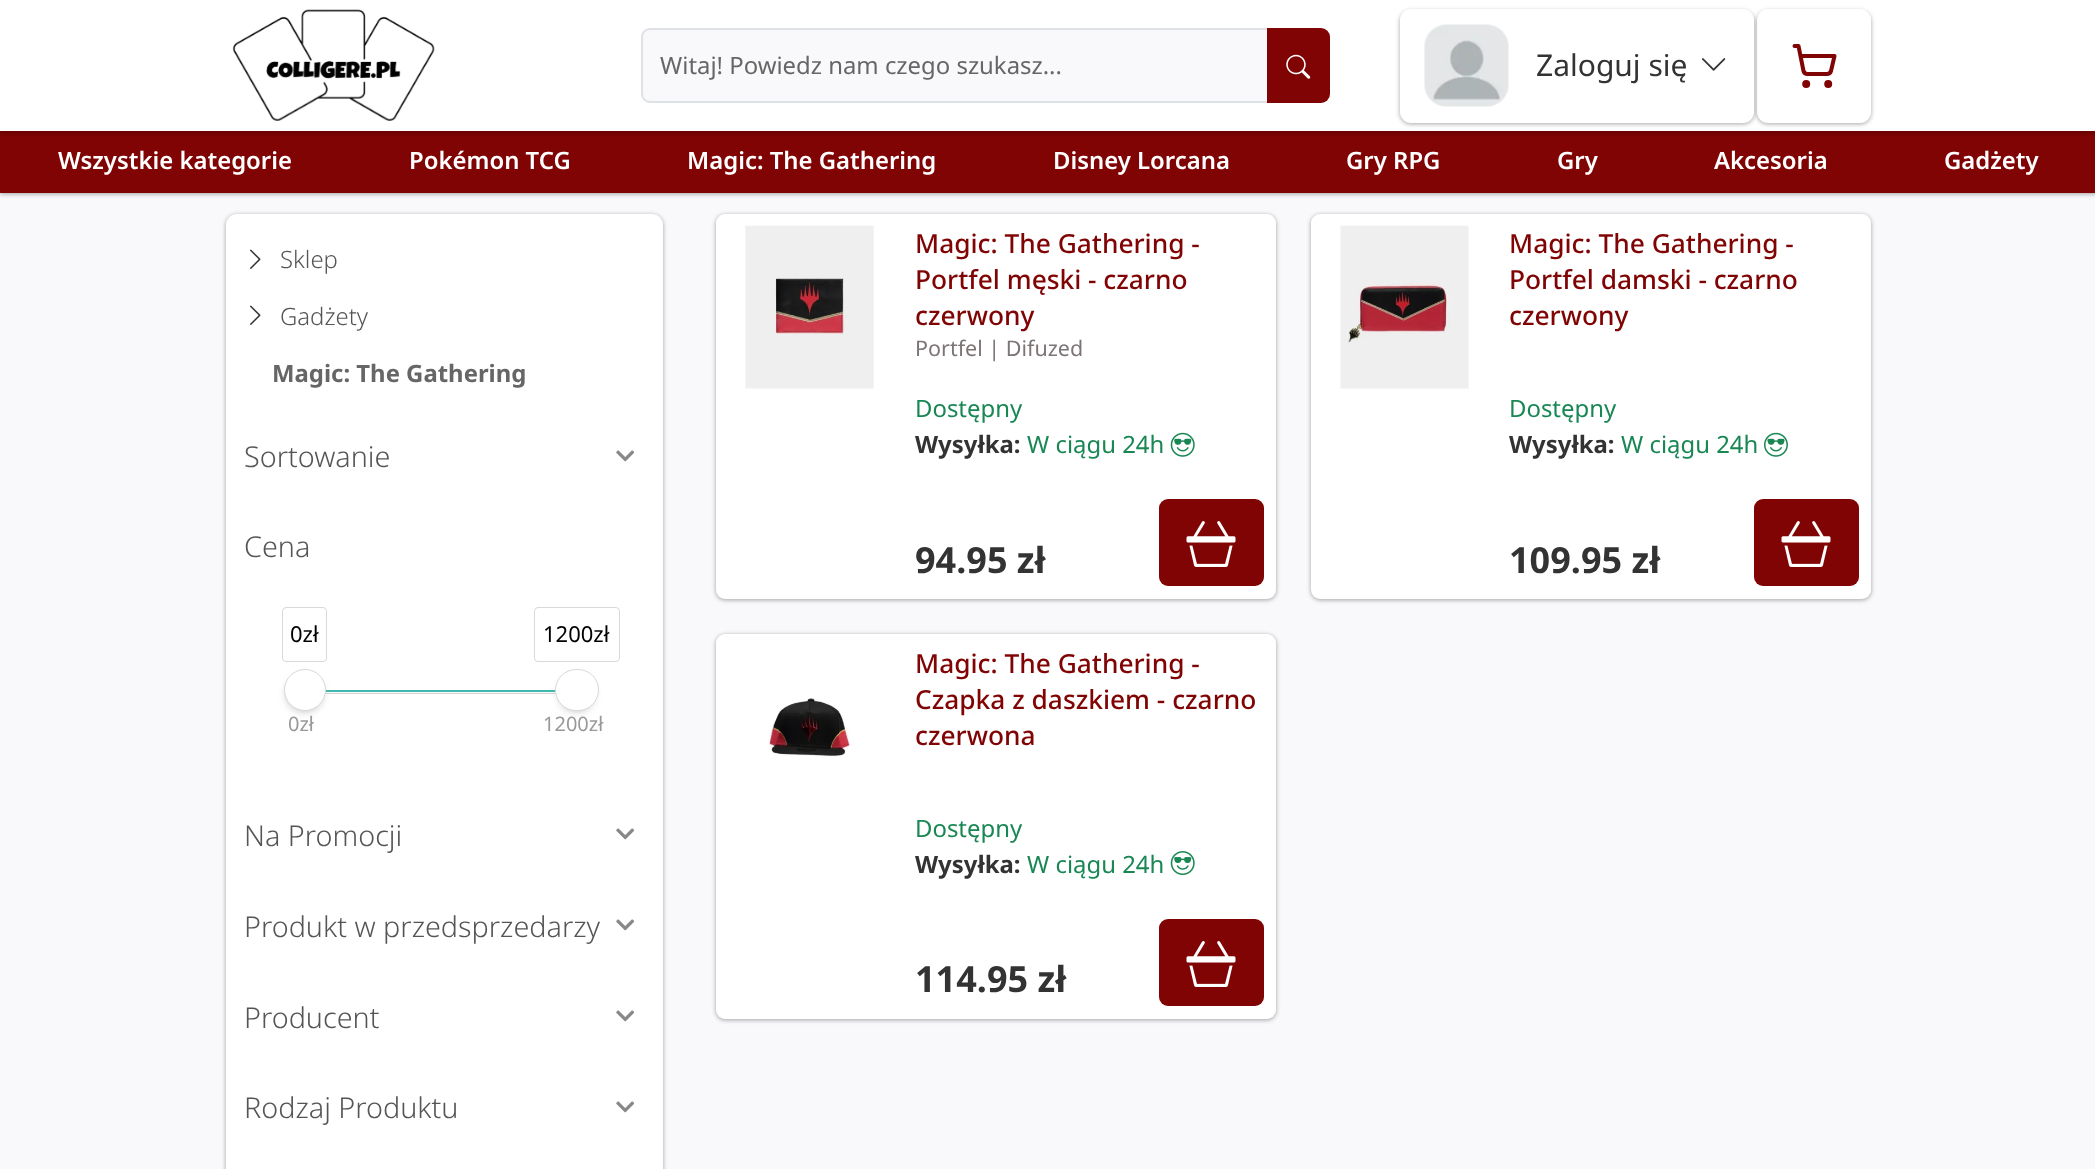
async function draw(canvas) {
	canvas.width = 2095;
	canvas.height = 1169;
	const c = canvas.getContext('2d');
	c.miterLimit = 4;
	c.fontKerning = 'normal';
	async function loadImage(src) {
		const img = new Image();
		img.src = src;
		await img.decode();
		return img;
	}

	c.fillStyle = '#f9f9fb';
	c.fillRect(0, 0, 2095, 1169);
	c.fillStyle = '#0000003d';
	c.filter = 'blur(2px)';
	c.beginPath();
	c.rect(0, 133, 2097, 61);
	c.fill();
	c.filter = 'none';
	c.fillStyle = '#0000001f';
	c.filter = 'blur(2.5px)';
	c.beginPath();
	c.rect(0, 133, 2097, 61);
	c.fill();
	c.filter = 'none';
	c.fillStyle = '#fff';
	c.fillRect(0, 0, 2095, 131);
	c.fillStyle = '#800404';
	c.fillRect(0, 131, 2095, 62);
	c.save();
	c.beginPath();
	c.rect(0, 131, 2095, 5);
	c.clip();
	c.fillStyle = '#0000003d';
	c.filter = 'blur(2px)';
	c.beginPath();
	c.rect(0, 2, 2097, 131);
	c.fill();
	c.filter = 'none';
	c.restore();
	c.drawImage(await loadImage('img1.png'), 232, 9, 203, 112);
	c.fillStyle = '#f9f9fb';
	c.beginPath();
	c.roundRect(642, 29, 626, 73, [8, 0, 0, 8]);
	c.fill();
	c.strokeStyle = '#dee2e6';
	c.lineWidth = 2;
	c.stroke();
	c.font = '23.9px Noto Sans';
	c.fillStyle = '#666';
	c.fillText('Witaj! Powiedz nam czego szukasz...', 660, 74);
	c.fillStyle = '#800404';
	c.beginPath();
	c.roundRect(1267, 28, 63, 75, [0, 9, 9, 0]);
	c.fill();
	c.drawImage(await loadImage('img2.png'), 1286, 54, 25, 25);
	c.fillStyle = '#0000003d';
	c.filter = 'blur(2px)';
	c.beginPath();
	c.roundRect(1757, 11, 114, 113, 11);
	c.fill();
	c.filter = 'none';
	c.fillStyle = '#0000001f';
	c.filter = 'blur(2.5px)';
	c.beginPath();
	c.roundRect(1757, 11, 114, 113, 11);
	c.fill();
	c.filter = 'none';
	c.fillStyle = '#fff';
	c.beginPath();
	c.roundRect(1757, 9, 114, 114, 11);
	c.fill();
	c.fillStyle = '#0000003d';
	c.filter = 'blur(2px)';
	c.beginPath();
	c.roundRect(1400, 11, 354, 113, 11);
	c.fill();
	c.filter = 'none';
	c.fillStyle = '#0000001f';
	c.filter = 'blur(2.5px)';
	c.beginPath();
	c.roundRect(1400, 11, 354, 113, 11);
	c.fill();
	c.filter = 'none';
	c.fillStyle = '#fff';
	c.beginPath();
	c.roundRect(1400, 9, 354, 114, 11);
	c.fill();
	c.drawImage(await loadImage('img3.png'), 1424, 24, 85, 83);
	c.font = '30px Noto Sans';
	c.fillStyle = '#333';
	c.fillText('Zaloguj się', 1536, 76);
	c.drawImage(await loadImage('img4.png'), 1702, 58, 24, 13);
	c.beginPath();
	c.arc(1806.2, 83.9, 2, 0, 2 * Math.PI);
	c.strokeStyle = '#800404';
	c.lineWidth = 4;
	c.stroke();
	c.beginPath();
	c.arc(1828.2, 83.9, 2, 0, 2 * Math.PI);
	c.stroke();
	c.beginPath();
	c.moveTo(1794.5, 46);
	c.lineTo(1798.5, 46);
	c.lineTo(1803.5, 71);
	c.bezierCurveTo(1804, 72.5, 1805.5, 74, 1807.5, 74);
	c.lineTo(1827, 74);
	c.bezierCurveTo(1829, 74, 1830.5, 72.5, 1831, 71);
	c.lineTo(1834.5, 56);
	c.lineTo(1800.5, 56);
	c.lineCap = 'round';
	c.lineJoin = 'round';
	c.stroke();
	c.font = '600 23.9px Noto Sans';
	c.fillStyle = '#fff';
	for (const [text, x, y] of [
		['Wszystkie kategorie', 58, 169],
		['Pokémon TCG', 409, 169],
		['Magic: The Gathering', 687, 169],
		['Disney Lorcana', 1053, 169],
		['Gry RPG', 1346, 169],
		['Gry', 1557, 169],
		['Akcesoria', 1714, 169],
		['Gadżety', 1944, 169],
	]) {
		c.fillText(text, x, y);
	}
	c.fillStyle = '#0000003d';
	c.filter = 'blur(2px)';
	c.beginPath();
	c.roundRect(226, 215, 437, 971, 11);
	c.fill();
	c.filter = 'none';
	c.fillStyle = '#0000001f';
	c.filter = 'blur(2.5px)';
	c.beginPath();
	c.roundRect(226, 215, 437, 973, 11);
	c.fill();
	c.filter = 'none';
	c.fillStyle = '#fff';
	c.beginPath();
	c.roundRect(226, 214, 437, 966, 11);
	c.fill();
	c.drawImage(await loadImage('img5.png'), 250, 249, 11, 20);
	c.font = '300 23.9px Noto Sans';
	c.fillStyle = '#555';
	c.fillText('Sklep', 280, 268);
	c.drawImage(await loadImage('img5.png'), 250, 305, 11, 20);
	c.fillText('Gadżety', 280, 325);
	c.font = 'bold 23.9px Noto Sans';
	c.fillStyle = '#666';
	c.fillText('Magic: The Gathering', 272, 382);
	c.font = '300 28.75px Noto Sans';
	c.fillStyle = '#555';
	c.fillText('Sortowanie', 244, 467);
	c.drawImage(await loadImage('img6.png'), 616, 450, 19, 12);
	c.fillText('Cena', 244, 557);
	c.fillStyle = '#fafafa';
	c.fillRect(325, 692, 231, 1);
	c.strokeStyle = '#d3d3d3';
	c.lineWidth = 1;
	c.lineJoin = 'miter';
	c.strokeRect(299.5, 690.5, 274, 3);
	c.fillStyle = '#3fb8af';
	c.fillRect(325, 690, 231, 2);
	c.fillStyle = '#bbb';
	c.filter = 'blur(4.5px)';
	c.beginPath();
	c.roundRect(287, 677, 35, 34, 17);
	c.fill();
	c.filter = 'none';
	c.fillStyle = '#fff';
	c.beginPath();
	c.arc(305, 690, 20.5, 0, 2 * Math.PI);
	c.fill();
	c.strokeStyle = '#d9d9d9';
	c.stroke();
	c.beginPath();
	c.roundRect(282.5, 607.5, 44, 54, 3.5);
	c.stroke();
	c.font = '22px Noto Sans';
	c.fillStyle = '#000';
	c.fillText('0zł', 290, 642);
	c.fillStyle = '#bbb';
	c.filter = 'blur(4.5px)';
	c.beginPath();
	c.roundRect(560, 677, 33, 34, 16.5);
	c.fill();
	c.filter = 'none';
	c.fillStyle = '#fff';
	c.beginPath();
	c.roundRect(555.5, 669.5, 43, 41, 20.5);
	c.fill();
	c.stroke();
	c.beginPath();
	c.roundRect(534.5, 607.5, 85, 54, 3.5);
	c.stroke();
	c.fillStyle = '#000';
	c.fillText('1200zł', 543, 642);
	c.font = '20px Noto Sans';
	c.fillStyle = '#999';
	c.fillText('0zł', 288, 731);
	c.fillText('1200zł', 543, 731);
	c.font = '300 28.75px Noto Sans';
	c.fillStyle = '#555';
	c.fillText('Na Promocji', 244, 846);
	c.drawImage(await loadImage('img6.png'), 616, 828, 19, 12);
	c.fillText('Produkt w przedsprzedarzy', 244, 937);
	c.drawImage(await loadImage('img6.png'), 616, 919, 19, 12);
	c.fillText('Producent', 244, 1028);
	c.drawImage(await loadImage('img6.png'), 616, 1010, 19, 12);
	c.fillText('Rodzaj Produktu', 244, 1118);
	c.drawImage(await loadImage('img6.png'), 616, 1101, 19, 12);
	c.fillStyle = '#0000003d';
	c.filter = 'blur(2px)';
	c.beginPath();
	c.roundRect(716, 215, 560, 385, 9);
	c.fill();
	c.filter = 'none';
	c.fillStyle = '#0000001f';
	c.filter = 'blur(2.5px)';
	c.beginPath();
	c.roundRect(716, 215, 560, 385, 9);
	c.fill();
	c.filter = 'none';
	c.fillStyle = '#fff';
	c.beginPath();
	c.roundRect(716, 214, 560, 385, 9);
	c.fill();
	c.drawImage(await loadImage('img7.png'), 745, 225, 129, 164);
	c.font = '500 26.3px Noto Sans';
	c.fillStyle = '#800404';
	for (const [text, x, y] of [
		['Magic: The Gathering -', 915, 253],
		['Portfel męski - czarno', 915, 289],
		['czerwony', 915, 325],
	]) {
		c.fillText(text, x, y);
	}
	c.font = '21.5px Noto Sans';
	c.fillStyle = '#7d7575';
	c.fillText('Portfel | Difuzed', 915, 356);
	c.font = '23.9px Noto Sans';
	c.fillStyle = '#198754';
	c.fillText('Dostępny', 915, 417);
	c.font = 'bold 23.9px Noto Sans';
	c.fillStyle = '#333';
	c.fillText('Wysyłka:', 915, 453);
	c.font = '23.9px Noto Sans';
	c.fillStyle = '#198754';
	c.fillText('W ciągu 24h', 1027, 453);
	c.drawImage(await loadImage('img8.png'), 1170, 432, 25, 25);
	c.font = 'bold 36px Noto Sans';
	c.fillStyle = '#333';
	c.fillText('94.95 zł', 915, 573);
	c.fillStyle = '#800404';
	c.beginPath();
	c.roundRect(1159, 499, 105, 87, 9);
	c.fill();
	c.drawImage(await loadImage('img9.png'), 1186, 521, 50, 46);
	c.fillStyle = '#0000003d';
	c.filter = 'blur(2px)';
	c.beginPath();
	c.roundRect(1311, 215, 560, 385, 9);
	c.fill();
	c.filter = 'none';
	c.fillStyle = '#0000001f';
	c.filter = 'blur(2.5px)';
	c.beginPath();
	c.roundRect(1311, 215, 560, 385, 9);
	c.fill();
	c.filter = 'none';
	c.fillStyle = '#fff';
	c.beginPath();
	c.roundRect(1311, 214, 560, 385, 9);
	c.fill();
	c.drawImage(await loadImage('img10.png'), 1340, 225, 129, 164);
	c.font = '500 26.3px Noto Sans';
	c.fillStyle = '#800404';
	for (const [text, x, y] of [
		['Magic: The Gathering -', 1509, 253],
		['Portfel damski - czarno', 1509, 289],
		['czerwony', 1509, 325],
	]) {
		c.fillText(text, x, y);
	}
	c.font = '23.9px Noto Sans';
	c.fillStyle = '#198754';
	c.fillText('Dostępny', 1509, 417);
	c.font = 'bold 23.9px Noto Sans';
	c.fillStyle = '#333';
	c.fillText('Wysyłka:', 1509, 453);
	c.font = '23.9px Noto Sans';
	c.fillStyle = '#198754';
	c.fillText('W ciągu 24h', 1621, 453);
	c.drawImage(await loadImage('img11.png'), 1764, 432, 24, 25);
	c.font = 'bold 36px Noto Sans';
	c.fillStyle = '#333';
	c.fillText('109.95 zł', 1509, 573);
	c.fillStyle = '#800404';
	c.beginPath();
	c.roundRect(1754, 499, 105, 87, 9);
	c.fill();
	c.drawImage(await loadImage('img9.png'), 1781, 521, 50, 46);
	c.fillStyle = '#0000003d';
	c.filter = 'blur(2px)';
	c.beginPath();
	c.roundRect(716, 635, 560, 385, 9);
	c.fill();
	c.filter = 'none';
	c.fillStyle = '#0000001f';
	c.filter = 'blur(2.5px)';
	c.beginPath();
	c.roundRect(716, 635, 560, 385, 9);
	c.fill();
	c.filter = 'none';
	c.fillStyle = '#fff';
	c.beginPath();
	c.roundRect(716, 634, 560, 385, 9);
	c.fill();
	c.drawImage(await loadImage('img12.png'), 768, 698, 82, 59);
	c.font = '500 26.3px Noto Sans';
	c.fillStyle = '#800404';
	for (const [text, x, y] of [
		['Magic: The Gathering -', 915, 673],
		['Czapka z daszkiem - czarno', 915, 709],
		['czerwona', 915, 745],
	]) {
		c.fillText(text, x, y);
	}
	c.font = '23.9px Noto Sans';
	c.fillStyle = '#198754';
	c.fillText('Dostępny', 915, 837);
	c.font = 'bold 23.9px Noto Sans';
	c.fillStyle = '#333';
	c.fillText('Wysyłka:', 915, 873);
	c.font = '23.9px Noto Sans';
	c.fillStyle = '#198754';
	c.fillText('W ciągu 24h', 1027, 873);
	c.drawImage(await loadImage('img13.png'), 1170, 851, 25, 24);
	c.font = 'bold 36px Noto Sans';
	c.fillStyle = '#333';
	c.fillText('114.95 zł', 915, 992);
	c.fillStyle = '#800404';
	c.beginPath();
	c.roundRect(1159, 919, 105, 87, 9);
	c.fill();
	c.drawImage(await loadImage('img9.png'), 1186, 941, 50, 46);
}

draw(document.querySelector('canvas'));
